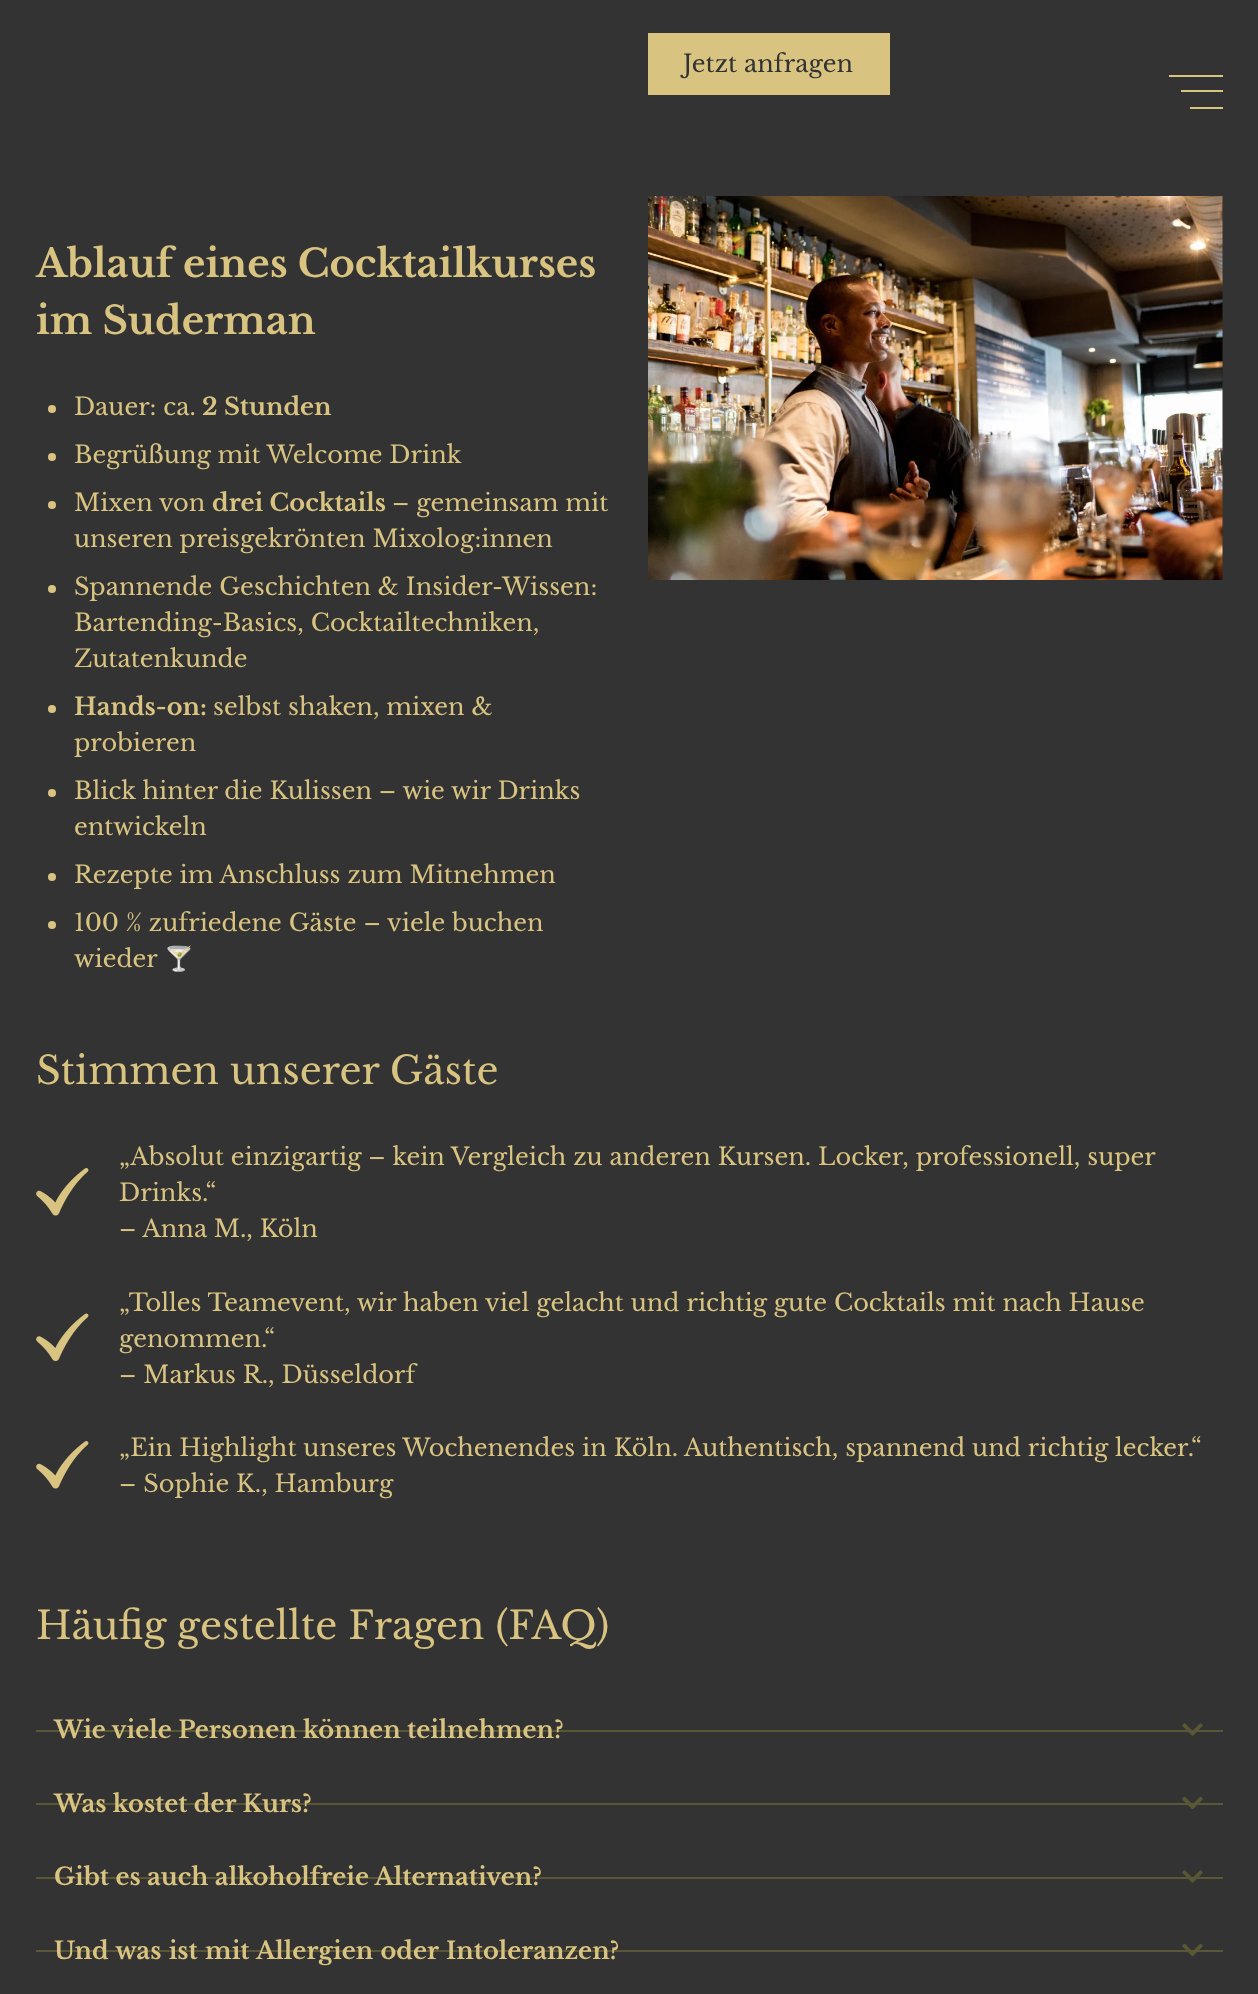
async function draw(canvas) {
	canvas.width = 1258;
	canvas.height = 1994;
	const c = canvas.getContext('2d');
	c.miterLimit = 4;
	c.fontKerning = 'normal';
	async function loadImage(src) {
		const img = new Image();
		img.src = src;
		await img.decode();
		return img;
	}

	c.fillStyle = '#333';
	c.fillRect(0, 0, 1258, 1994);
	c.fillStyle = '#d8c381';
	c.fillRect(648, 33, 242, 62);
	c.font = '24px Libre Baskerville';
	c.fillStyle = '#333';
	c.fillText('Jetzt anfragen', 683, 72);
	c.font = 'bold 38.4px Libre Baskerville';
	c.fillStyle = '#d8c381';
	c.fillText('Ablauf eines Cocktailkurses', 36, 277);
	c.fillText('im Suderman', 36, 334);
	c.beginPath();
	c.arc(52, 409, 4, 0, 2 * Math.PI);
	c.fill();
	c.font = '24px Libre Baskerville';
	c.fillText('Dauer: ca.', 74, 415);
	c.font = 'bold 24px Libre Baskerville';
	c.fillText('2 Stunden', 202, 415);
	c.beginPath();
	c.arc(52, 457, 4, 0, 2 * Math.PI);
	c.fill();
	c.font = '24px Libre Baskerville';
	c.fillText('Begrüßung mit Welcome Drink', 74, 463);
	c.beginPath();
	c.arc(52, 505, 4, 0, 2 * Math.PI);
	c.fill();
	c.fillText('Mixen von', 74, 511);
	c.font = 'bold 24px Libre Baskerville';
	c.fillText('drei Cocktails', 212, 511);
	c.font = '24px Libre Baskerville';
	c.fillText('– gemeinsam mit', 392, 511);
	c.fillText('unseren preisgekrönten Mixolog:innen', 74, 547);
	c.beginPath();
	c.arc(52, 589, 4, 0, 2 * Math.PI);
	c.fill();
	for (const [text, x, y] of [
		['Spannende Geschichten & Insider-Wissen:', 74, 595],
		['Bartending-Basics, Cocktailtechniken,', 74, 631],
		['Zutatenkunde', 74, 667],
	]) {
		c.fillText(text, x, y);
	}
	c.beginPath();
	c.arc(52, 709, 4, 0, 2 * Math.PI);
	c.fill();
	c.font = 'bold 24px Libre Baskerville';
	c.fillText('Hands-on:', 74, 715);
	c.font = '24px Libre Baskerville';
	c.fillText('selbst shaken, mixen &', 213, 715);
	c.fillText('probieren', 74, 751);
	c.beginPath();
	c.arc(52, 793, 4, 0, 2 * Math.PI);
	c.fill();
	c.fillText('Blick hinter die Kulissen – wie wir Drinks', 74, 799);
	c.fillText('entwickeln', 74, 835);
	c.beginPath();
	c.arc(52, 877, 4, 0, 2 * Math.PI);
	c.fill();
	c.fillText('Rezepte im Anschluss zum Mitnehmen', 74, 883);
	c.beginPath();
	c.arc(52, 925, 4, 0, 2 * Math.PI);
	c.fill();
	c.fillText('100 % zufriedene Gäste – viele buchen', 74, 931);
	c.fillText('wieder', 74, 967);
	c.font = '24px Noto Color Emoji';
	c.fillText('🍸', 164, 967);
	c.drawImage(await loadImage('img1.png'), 648, 196, 575, 384);
	c.font = '38.4px Libre Baskerville';
	c.fillText('Stimmen unserer Gäste', 36, 1084);
	c.drawImage(await loadImage('img2.png'), 36, 1168, 53, 48);
	c.font = '24px Libre Baskerville';
	for (const [text, x, y] of [
		['„Absolut einzigartig – kein Vergleich zu anderen Kursen. Locker, professionell, super', 119, 1165],
		['Drinks.“', 119, 1201],
		['– Anna M., Köln', 119, 1237],
	]) {
		c.fillText(text, x, y);
	}
	c.drawImage(await loadImage('img3.png'), 36, 1313, 53, 48);
	for (const [text, x, y] of [
		['„Tolles Teamevent, wir haben viel gelacht und richtig gute Cocktails mit nach Hause', 119, 1311],
		['genommen.“', 119, 1347],
		['– Markus R., Düsseldorf', 119, 1383],
	]) {
		c.fillText(text, x, y);
	}
	c.drawImage(await loadImage('img2.png'), 36, 1441, 53, 48);
	c.fillText('„Ein Highlight unseres Wochenendes in Köln. Authentisch, spannend und richtig lecker.“', 119, 1456);
	c.fillText('– Sophie K., Hamburg', 119, 1492);
	c.font = '38.4px Libre Baskerville';
	c.fillText('Häufig gestellte Fragen (FAQ)', 36, 1639);
	c.fillStyle = '#595736';
	c.fillRect(36, 1730, 1187, 2);
	c.font = 'bold 24px Libre Baskerville';
	c.fillStyle = '#d8c381';
	c.fillText('Wie viele Personen können teilnehmen?', 54, 1738);
	c.drawImage(await loadImage('img4.png'), 1182, 1723, 21, 13);
	c.fillStyle = '#595736';
	c.fillRect(36, 1803, 1187, 2);
	c.fillStyle = '#d8c381';
	c.fillText('Was kostet der Kurs?', 54, 1812);
	c.drawImage(await loadImage('img5.png'), 1182, 1796, 21, 14);
	c.fillStyle = '#595736';
	c.fillRect(36, 1877, 1187, 2);
	c.fillStyle = '#d8c381';
	c.fillText('Gibt es auch alkoholfreie Alternativen?', 54, 1885);
	c.drawImage(await loadImage('img4.png'), 1182, 1870, 21, 13);
	c.fillStyle = '#595736';
	c.fillRect(36, 1950, 1187, 2);
	c.wordSpacing = '1px';
	c.fillStyle = '#d8c381';
	c.fillText('Und was ist mit Allergien oder Intoleranzen?', 54, 1959);
	c.drawImage(await loadImage('img5.png'), 1182, 1943, 21, 14);
	for (const [x, y, w, h, color] of [
		[1169, 75, 54, 2, '#d8c381'],
		[1181, 90, 42, 2, '#d8c381'],
		[1190, 107, 33, 2, '#d8c381'],
	]) {
		c.fillStyle = color;
		c.fillRect(x, y, w, h);
	}
}

draw(document.querySelector('canvas'));
